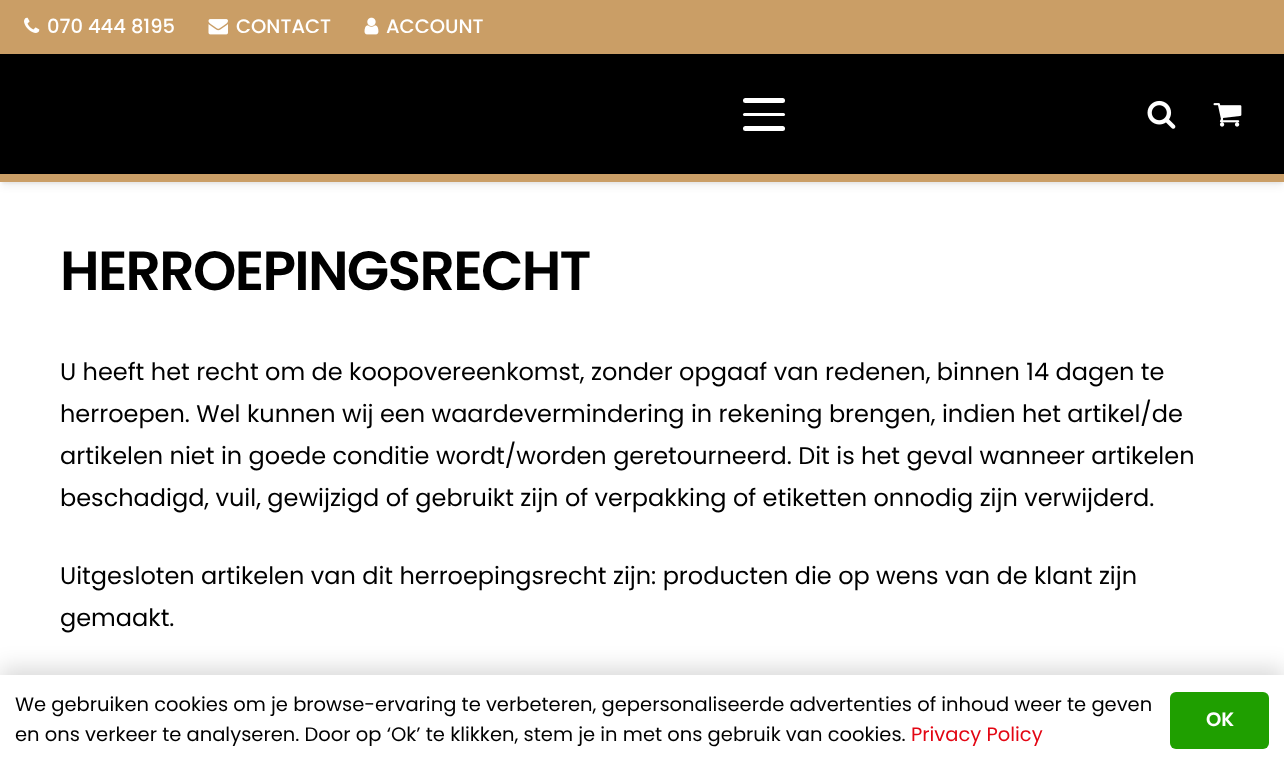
async function draw(canvas) {
	canvas.width = 1284;
	canvas.height = 765;
	const c = canvas.getContext('2d');
	c.miterLimit = 4;
	c.fontKerning = 'normal';
	async function loadImage(src) {
		const img = new Image();
		img.src = src;
		await img.decode();
		return img;
	}

	c.fillStyle = '#fff';
	c.fillRect(0, 0, 1284, 765);
	c.fillStyle = '#ca9e66';
	c.fillRect(0, 0, 1284, 54);
	c.drawImage(await loadImage('img1.png'), 24, 17, 16, 16);
	c.font = '500 19.5px Poppins';
	c.fillStyle = '#fff';
	c.fillText('070 444 8195', 47, 33);
	c.drawImage(await loadImage('img2.png'), 208, 19, 20, 16);
	c.fillText('CONTACT', 236, 33);
	c.drawImage(await loadImage('img3.png'), 364, 17, 15, 18);
	c.fillText('ACCOUNT', 386, 33);
	c.fillStyle = '#000';
	c.fillRect(0, 54, 1284, 120);
	c.fillStyle = '#fff';
	c.beginPath();
	c.roundRect(743, 113, 42, 3, 1.5);
	c.fill();
	c.beginPath();
	c.roundRect(743, 98, 42, 5, 2.5);
	c.fill();
	c.beginPath();
	c.roundRect(743, 126, 42, 5, 2.5);
	c.fill();
	c.drawImage(await loadImage('img4.png'), 1147, 100, 29, 29);
	c.drawImage(await loadImage('img5.png'), 1213, 103, 29, 24);
	c.fillStyle = '#0000000d';
	c.filter = 'blur(1px)';
	c.beginPath();
	c.rect(2, 179, 1281, 5);
	c.fill();
	c.filter = 'none';
	c.fillStyle = '#0000001a';
	c.filter = 'blur(4px)';
	c.beginPath();
	c.rect(2, 180, 1281, 5);
	c.fill();
	c.filter = 'none';
	c.fillStyle = '#ca9e66';
	c.fillRect(0, 174, 1284, 8);
	c.letterSpacing = '-1.7px';
	c.font = '600 55.25px Poppins';
	c.fillStyle = '#000';
	c.fillText('HERROEPINGSRECHT', 60, 290);
	c.letterSpacing = '0px';
	c.font = '24px Poppins';
	for (const [text, x, y] of [
		['U heeft het recht om de koopovereenkomst, zonder opgaaf van redenen, binnen 14 dagen te', 60, 380],
		['herroepen. Wel kunnen wij een waardevermindering in rekening brengen, indien het artikel/de', 60, 422],
		['artikelen niet in goede conditie wordt/worden geretourneerd. Dit is het geval wanneer artikelen', 60, 464],
		['beschadigd, vuil, gewijzigd of gebruikt zijn of verpakking of etiketten onnodig zijn verwijderd.', 60, 506],
		['Uitgesloten artikelen van dit herroepingsrecht zijn: producten die op wens van de klant zijn', 60, 584],
		['gemaakt.', 60, 626],
	]) {
		c.fillText(text, x, y);
	}
	c.fillStyle = '#00000026';
	c.filter = 'blur(11px)';
	c.beginPath();
	c.rect(0, 668, 1284, 90);
	c.fill();
	c.filter = 'none';
	c.fillStyle = '#fff';
	c.fillRect(0, 675, 1284, 90);
	c.font = '19.5px Poppins';
	c.fillStyle = '#000';
	c.fillText('We gebruiken cookies om je browse-ervaring te verbeteren, gepersonaliseerde advertenties of inhoud weer te geven', 15, 711);
	c.fillText('en ons verkeer te analyseren. Door op ‘Ok’ te klikken, stem je in met ons gebruik van cookies.', 15, 741);
	c.fillStyle = '#e30613';
	c.fillText('Privacy Policy', 911, 741);
	c.fillStyle = '#1f9f00';
	c.beginPath();
	c.roundRect(1170, 692, 99, 57, 6);
	c.fill();
	c.font = '600 19.5px Poppins';
	c.fillStyle = '#fff';
	c.fillText('OK', 1206, 726);
}

draw(document.querySelector('canvas'));
